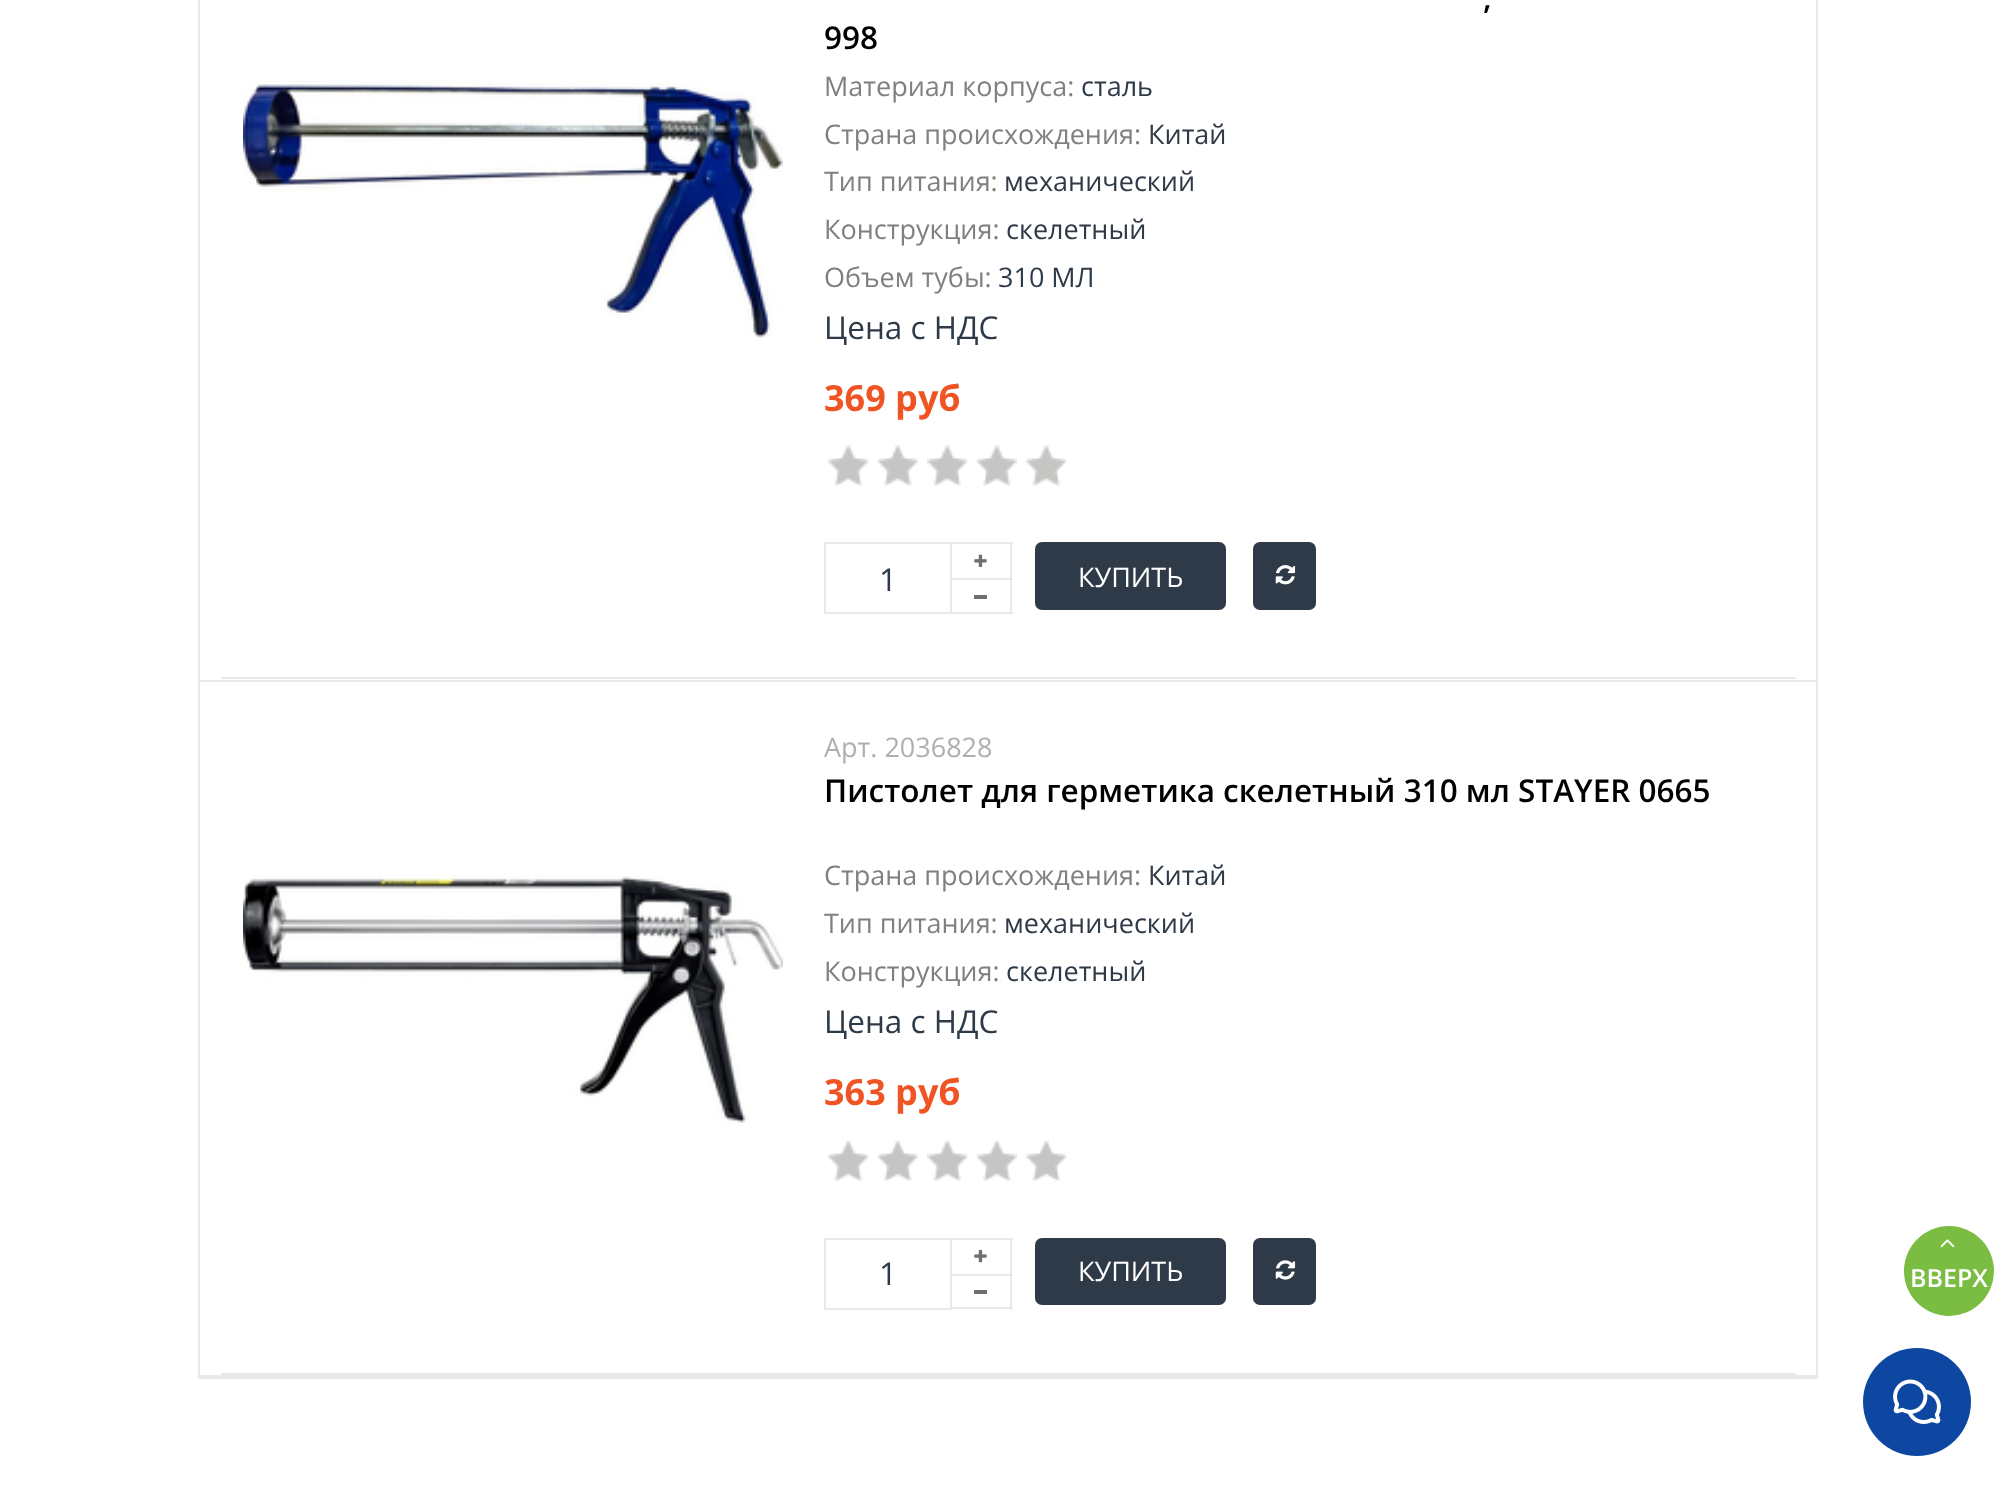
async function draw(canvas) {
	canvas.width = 2014;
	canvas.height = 1500;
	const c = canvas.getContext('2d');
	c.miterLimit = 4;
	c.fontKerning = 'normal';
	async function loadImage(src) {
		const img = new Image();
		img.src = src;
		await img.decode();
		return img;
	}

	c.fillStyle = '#fff';
	c.fillRect(0, 0, 2014, 1500);
	c.strokeStyle = '#e9e9e9';
	c.lineWidth = 2;
	c.strokeRect(199, -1, 1618, 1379);
	c.fillStyle = '#e9e9e9';
	c.fillRect(200, 680, 1616, 2);
	c.fillRect(221, 677, 1575, 2);
	c.drawImage(await loadImage('img1.png'), 243, 80, 540, 258);
	c.font = '600 31.5px Open Sans';
	c.fillStyle = '#000';
	c.fillText(',', 1483, 9);
	c.fillText('998', 824, 49);
	c.font = '27px Open Sans';
	c.fillStyle = '#808080';
	c.fillText('Материал корпуса:', 824, 96);
	c.fillStyle = '#2e3a47';
	c.fillText('сталь', 1081, 96);
	c.fillStyle = '#808080';
	c.fillText('Страна происхождения:', 824, 144);
	c.fillStyle = '#2e3a47';
	c.fillText('Китай', 1148, 144);
	c.save();
	c.beginPath();
	c.rect(824, 0, 949, 632);
	c.clip();
	c.fillStyle = '#808080';
	c.fillText('Тип питания:', 824, 191);
	c.restore();
	c.fillText('механический', 1004, 191);
	c.fillStyle = '#808080';
	c.fillText('Конструкция:', 824, 239);
	c.fillStyle = '#2e3a47';
	c.fillText('скелетный', 1006, 239);
	c.fillStyle = '#808080';
	c.fillText('Объем тубы:', 824, 287);
	c.fillStyle = '#2e3a47';
	c.fillText('310 МЛ', 998, 287);
	c.font = '31.5px Open Sans';
	c.fillText('Цена с НДС', 824, 339);
	c.font = 'bold 36px Open Sans';
	c.fillStyle = '#f05423';
	c.fillText('369 руб', 824, 411);
	c.drawImage(await loadImage('img2.png'), 828, 445, 41, 41);
	c.drawImage(await loadImage('img3.png'), 877, 445, 41, 41);
	c.drawImage(await loadImage('img2.png'), 927, 445, 41, 41);
	c.drawImage(await loadImage('img4.png'), 976, 445, 41, 41);
	c.drawImage(await loadImage('img2.png'), 1026, 445, 41, 41);
	c.strokeRect(825, 543, 126, 70);
	c.font = '31.5px Open Sans';
	c.fillStyle = '#2e3a47';
	c.fillText('1', 879, 591);
	c.fillStyle = '#e9e9e9';
	c.fillRect(952, 542, 61, 2);
	c.fillRect(1010, 542, 2, 36);
	c.drawImage(await loadImage('img5.png'), 974, 554, 13, 13);
	for (const [x, y, w, h, color] of [
		[952, 578, 61, 2, '#e9e9e9'],
		[1010, 578, 2, 36, '#e9e9e9'],
		[952, 612, 61, 2, '#e9e9e9'],
		[974, 595, 13, 4, '#6f6f6f'],
	]) {
		c.fillStyle = color;
		c.fillRect(x, y, w, h);
	}
	c.fillStyle = '#2e3a47';
	c.beginPath();
	c.roundRect(1035, 542, 191, 68, 7);
	c.fill();
	c.font = '27px Open Sans';
	c.fillStyle = '#fff';
	c.fillText('КУПИТЬ', 1078, 587);
	c.fillStyle = '#2e3a47';
	c.beginPath();
	c.roundRect(1253, 542, 63, 68, 7);
	c.fill();
	c.drawImage(await loadImage('img6.png'), 1275, 565, 21, 20);
	c.fillStyle = '#e9e9e9';
	c.fillRect(200, 1375, 1616, 2);
	c.fillRect(221, 1373, 1575, 2);
	c.drawImage(await loadImage('img7.png'), 243, 875, 540, 249);
	c.fillStyle = '#afafaf';
	c.fillText('Арт. 2036828', 824, 757);
	c.font = '600 31.5px Open Sans';
	c.fillStyle = '#000';
	c.fillText('Пистолет для герметика скелетный 310 мл STAYER 0665', 824, 802);
	c.font = '27px Open Sans';
	c.fillStyle = '#808080';
	c.fillText('Страна происхождения:', 824, 885);
	c.fillStyle = '#2e3a47';
	c.fillText('Китай', 1148, 885);
	c.save();
	c.beginPath();
	c.rect(824, 727, 949, 601);
	c.clip();
	c.fillStyle = '#808080';
	c.fillText('Тип питания:', 824, 933);
	c.restore();
	c.fillText('механический', 1004, 933);
	c.fillStyle = '#808080';
	c.fillText('Конструкция:', 824, 981);
	c.fillStyle = '#2e3a47';
	c.fillText('скелетный', 1006, 981);
	c.font = '31.5px Open Sans';
	c.fillText('Цена с НДС', 824, 1033);
	c.font = 'bold 36px Open Sans';
	c.fillStyle = '#f05423';
	c.fillText('363 руб', 824, 1105);
	c.drawImage(await loadImage('img8.png'), 828, 1140, 41, 41);
	c.drawImage(await loadImage('img9.png'), 877, 1140, 41, 41);
	c.drawImage(await loadImage('img8.png'), 927, 1140, 41, 41);
	c.drawImage(await loadImage('img10.png'), 976, 1140, 41, 41);
	c.drawImage(await loadImage('img8.png'), 1026, 1140, 41, 41);
	c.strokeRect(825, 1239, 126, 70);
	c.font = '31.5px Open Sans';
	c.fillStyle = '#2e3a47';
	c.fillText('1', 879, 1285);
	c.fillStyle = '#e9e9e9';
	c.fillRect(952, 1238, 61, 2);
	c.fillRect(1010, 1238, 2, 36);
	c.drawImage(await loadImage('img11.png'), 974, 1249, 13, 14);
	for (const [x, y, w, h, color] of [
		[952, 1274, 61, 2, '#e9e9e9'],
		[1010, 1274, 2, 36, '#e9e9e9'],
		[952, 1307, 61, 2, '#e9e9e9'],
		[974, 1290, 13, 4, '#6f6f6f'],
	]) {
		c.fillStyle = color;
		c.fillRect(x, y, w, h);
	}
	c.fillStyle = '#2e3a47';
	c.beginPath();
	c.roundRect(1035, 1238, 191, 67, 7);
	c.fill();
	c.font = '27px Open Sans';
	c.fillStyle = '#fff';
	c.fillText('КУПИТЬ', 1078, 1281);
	c.fillStyle = '#2e3a47';
	c.beginPath();
	c.roundRect(1253, 1238, 63, 67, 7);
	c.fill();
	c.drawImage(await loadImage('img12.png'), 1275, 1260, 21, 20);
	c.fillStyle = '#7bbd42';
	c.beginPath();
	c.arc(1949, 1271, 45, 0, 2 * Math.PI);
	c.fill();
	c.drawImage(await loadImage('img13.png'), 1940, 1239, 15, 9);
	c.font = '600 25px Open Sans';
	c.fillStyle = '#fff';
	c.fillText('ВВЕРХ', 1910, 1287);
	c.fillStyle = '#0d47a1';
	c.beginPath();
	c.arc(1917, 1402, 54, 0, 2 * Math.PI);
	c.fill();
	c.drawImage(await loadImage('img14.png'), 1893, 1379, 48, 45);
}

draw(document.querySelector('canvas'));
